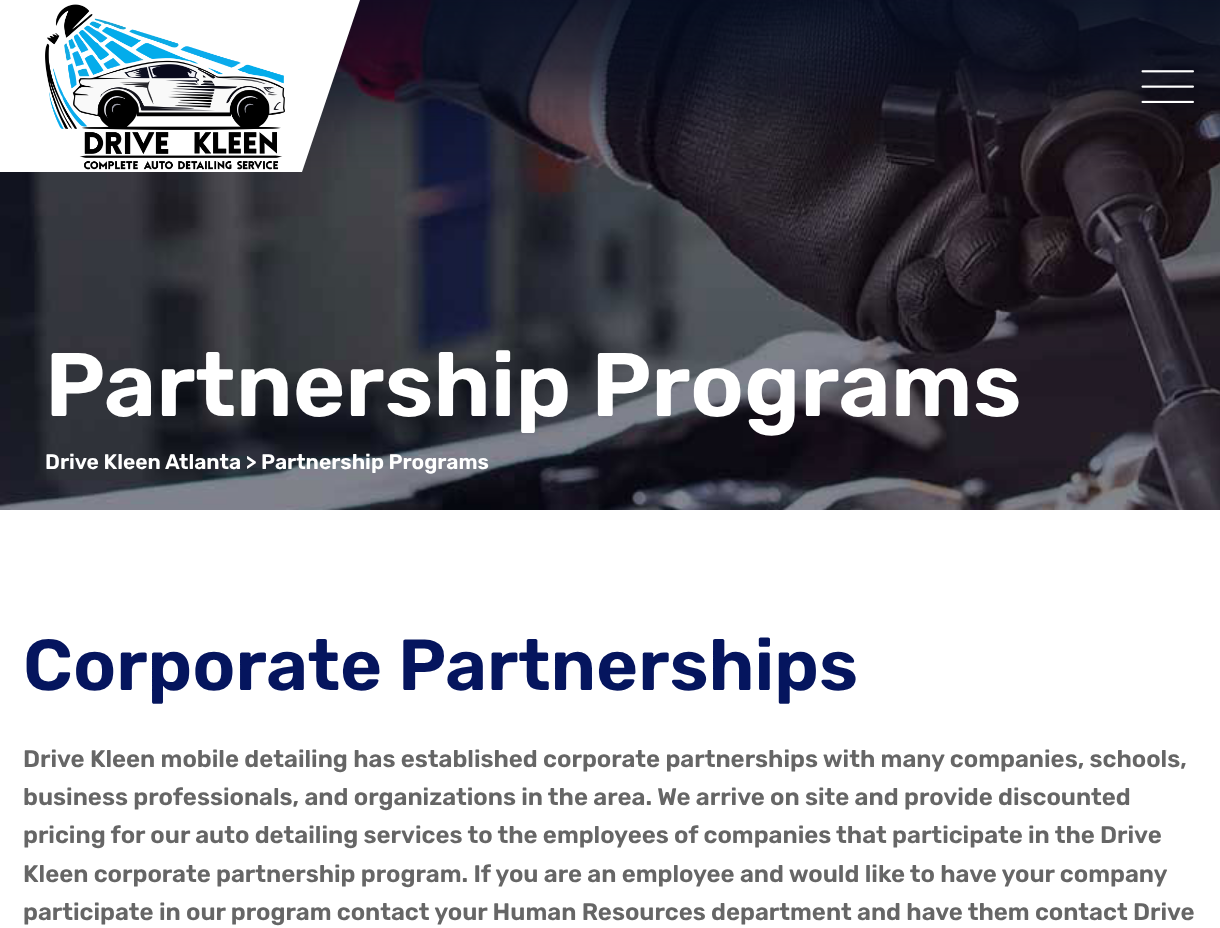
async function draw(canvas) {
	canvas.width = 1220;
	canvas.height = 928;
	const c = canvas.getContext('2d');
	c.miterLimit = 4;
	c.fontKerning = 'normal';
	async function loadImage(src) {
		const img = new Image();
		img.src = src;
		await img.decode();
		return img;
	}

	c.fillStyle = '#fff';
	c.fillRect(0, 0, 1220, 928);
	c.drawImage(await loadImage('img3.png'), 0, 0, 1220, 510);
	c.beginPath();
	c.moveTo(0, 0);
	c.lineTo(0, 172);
	c.lineTo(302, 172);
	c.lineTo(360, 0);
	c.closePath();
	c.fill();
	c.drawImage(await loadImage('img1.png'), 45, 4, 240, 166);
	c.drawImage(await loadImage('img2.png'), 1141, 70, 53, 33);
	c.font = '600 90px Rubik';
	c.fillText('Partnership Programs', 45, 416);
	c.font = '600 21px Rubik';
	c.fillText('Drive Kleen Atlanta > Partnership Programs', 45, 469);
	c.font = '600 72px Rubik';
	c.fillStyle = '#05155e';
	c.fillText('Corporate Partnerships', 23, 690);
	c.font = '600 24px Rubik';
	c.fillStyle = '#666';
	for (const [text, x, y] of [
		['Drive Kleen mobile detailing has established corporate partnerships with many companies, schools,', 23, 767],
		['business professionals, and organizations in the area. We arrive on site and provide discounted', 23, 805],
		['pricing for our auto detailing services to the employees of companies that participate in the Drive', 23, 843],
		['Kleen corporate partnership program. If you are an employee and would like to have your company', 23, 882],
		['participate in our program contact your Human Resources department and have them contact Drive', 23, 920],
	]) {
		c.fillText(text, x, y);
	}
}

draw(document.querySelector('canvas'));
